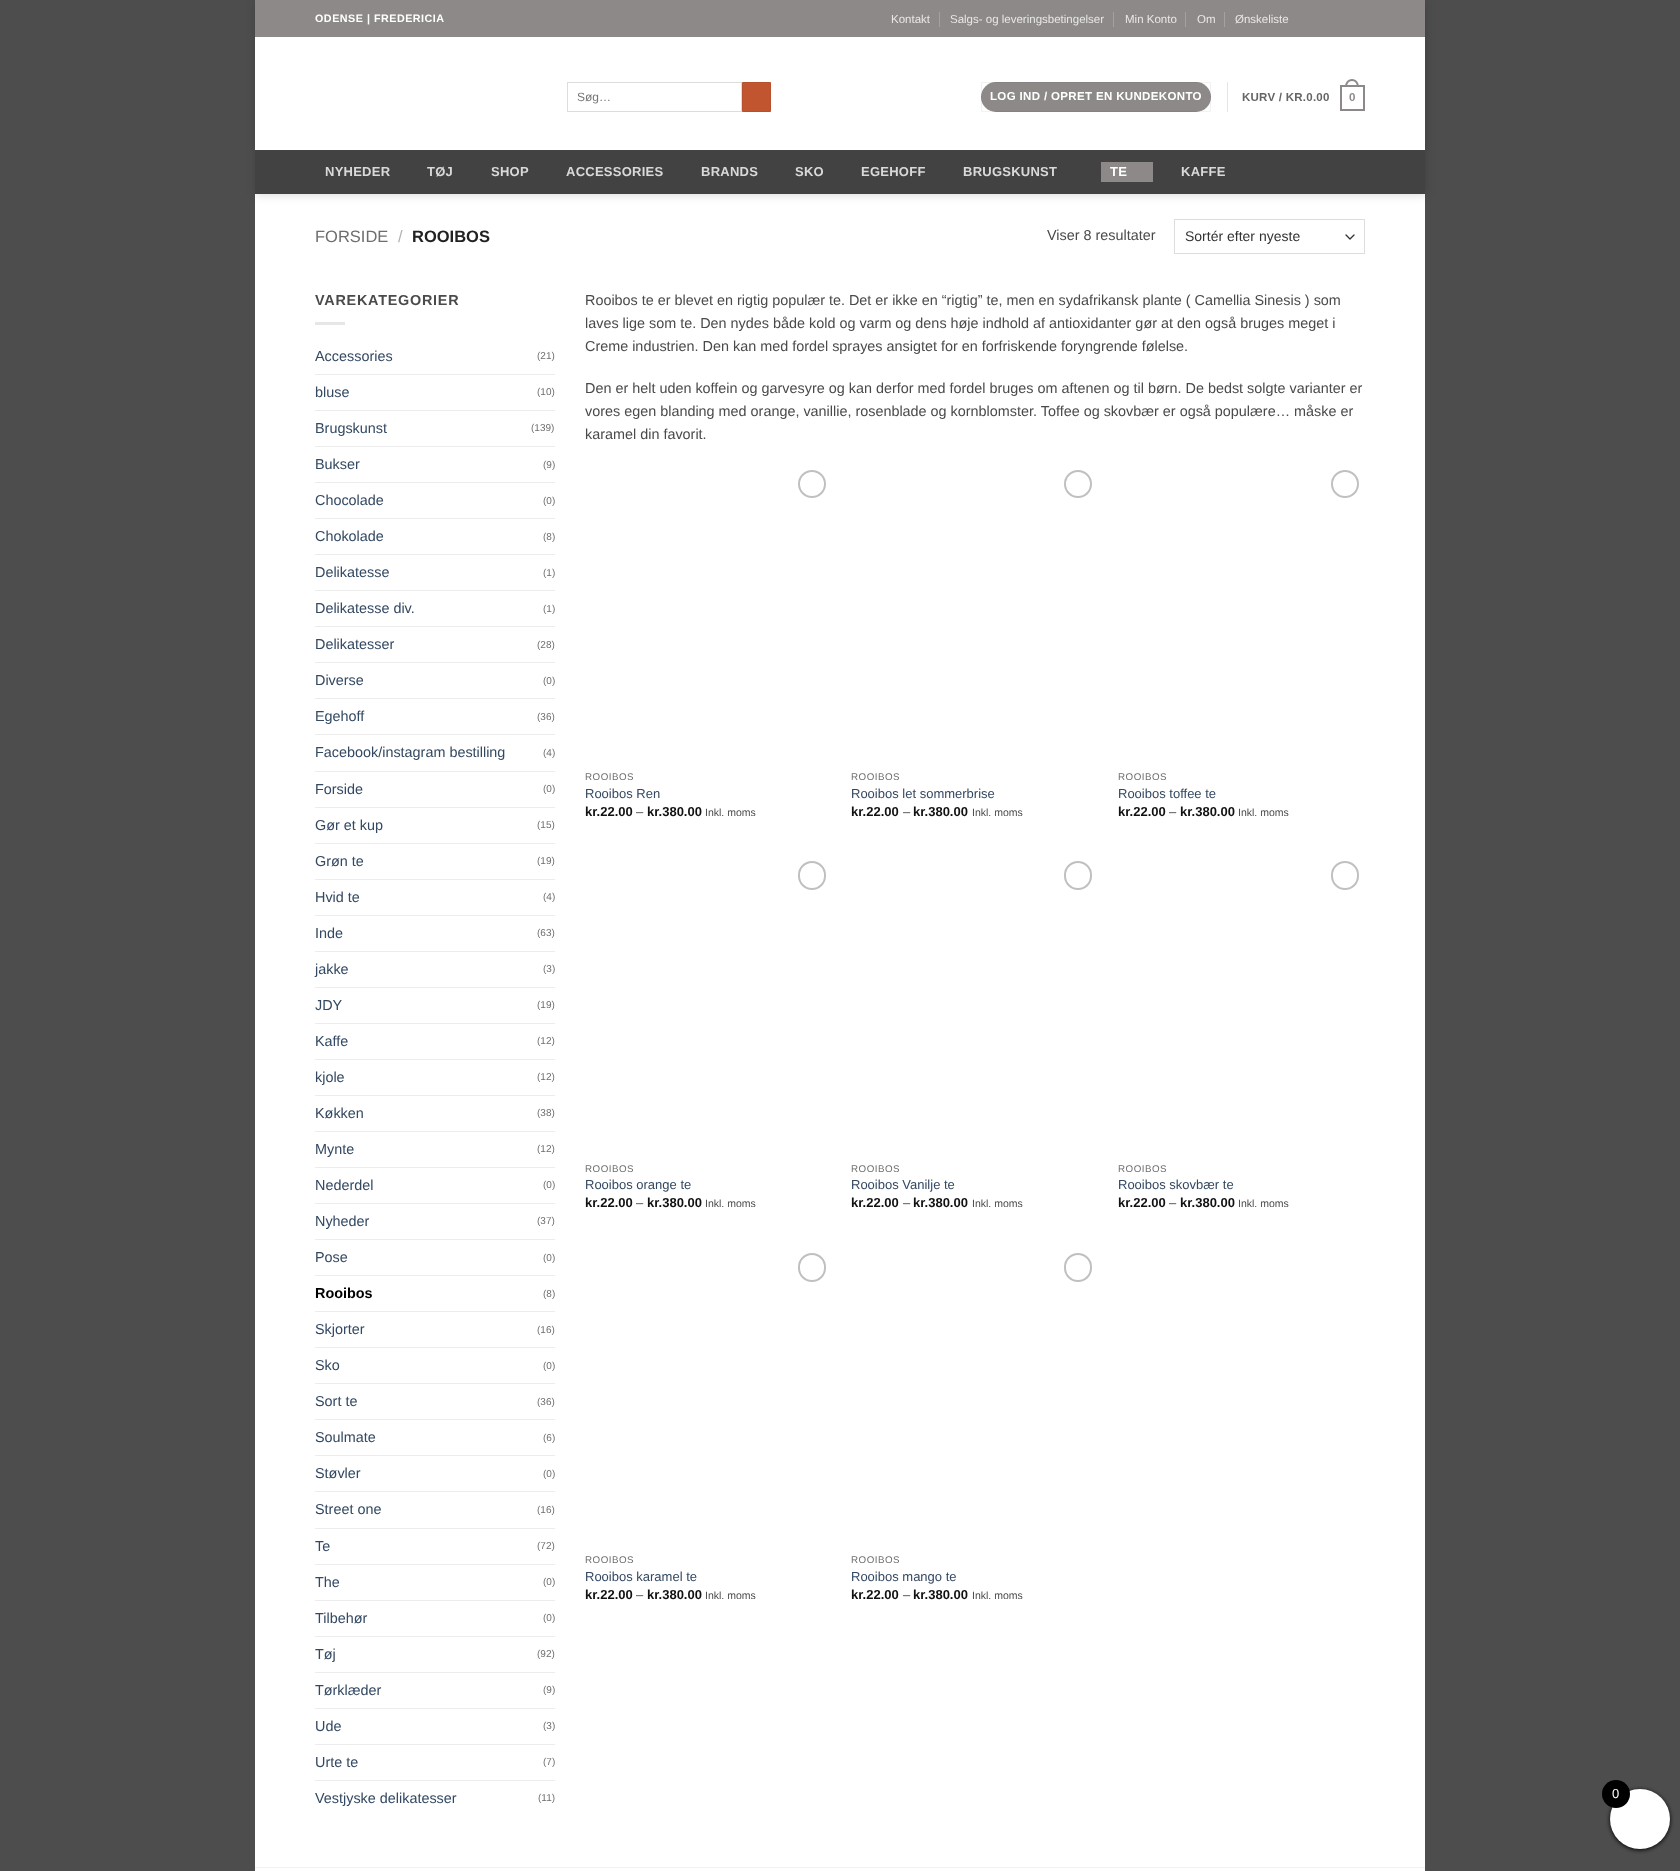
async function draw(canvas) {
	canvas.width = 1680;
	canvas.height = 1871;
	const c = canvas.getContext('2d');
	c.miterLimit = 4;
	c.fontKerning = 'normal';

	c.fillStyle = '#4d4d4d';
	c.fillRect(0, 0, 1680, 1871);
	c.fillStyle = '#fff';
	c.fillRect(255, 37, 1170, 1834);
	c.save();
	c.beginPath();
	c.moveTo(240, 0);
	c.lineTo(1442, 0);
	c.lineTo(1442, 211);
	c.lineTo(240, 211);
	c.closePath();
	c.moveTo(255, 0);
	c.lineTo(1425, 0);
	c.lineTo(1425, 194);
	c.lineTo(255, 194);
	c.closePath();
	c.clip('evenodd');
	c.fillStyle = '#00000026';
	c.filter = 'blur(5px)';
	c.beginPath();
	c.rect(256, 1, 1170, 194);
	c.fill();
	c.filter = 'none';
	c.restore();
	c.fillStyle = '#8e8989';
	c.fillRect(255, 0, 1170, 37);
	c.letterSpacing = '0.5px';
	c.font = 'bold 10.75px Liberation Sans';
	c.fillStyle = '#fff';
	c.fillText('ODENSE | FREDERICIA', 315, 22);
	c.letterSpacing = '0px';
	c.font = '11.5px Liberation Sans';
	c.fillStyle = '#e8e7e7';
	c.fillText('Kontakt', 891, 23);
	c.fillStyle = '#a5a1a1';
	c.fillRect(939, 12, 1, 15);
	c.fillStyle = '#e8e7e7';
	c.fillText('Salgs- og leveringsbetingelser', 950, 23);
	c.fillStyle = '#a5a1a1';
	c.fillRect(1113, 12, 1, 15);
	c.fillStyle = '#e8e7e7';
	c.fillText('Min Konto', 1125, 23);
	c.fillStyle = '#a5a1a1';
	c.fillRect(1185, 12, 1, 15);
	c.fillStyle = '#e8e7e7';
	c.fillText('Om', 1197, 23);
	c.fillStyle = '#a5a1a1';
	c.fillRect(1224, 12, 1, 15);
	c.fillStyle = '#e8e7e7';
	c.fillText('Ønskeliste', 1235, 23);
	c.strokeStyle = '#ddd';
	c.strokeRect(567.5, 82.5, 174, 29);
	c.font = '12px Liberation Sans';
	c.fillStyle = '#757575';
	c.fillText('Søg…', 577, 101);
	c.fillStyle = '#c05530';
	c.beginPath();
	c.rect(742.5, 82.5, 28, 29);
	c.fill();
	c.strokeStyle = '#b6512e';
	c.stroke();
	c.fillStyle = '#8e8989';
	c.beginPath();
	c.roundRect(981, 82, 230, 30, 15);
	c.fill();
	c.strokeStyle = '#0000000d';
	c.strokeRect(981.5, 82.5, 229, 29);
	c.letterSpacing = '0.35px';
	c.font = 'bold 11.5px Liberation Sans';
	c.fillStyle = '#fff';
	c.fillText('LOG IND / OPRET EN KUNDEKONTO', 990, 100);
	c.fillStyle = '#e6e6e6';
	c.fillRect(1227, 82, 1, 30);
	c.letterSpacing = '0.25px';
	c.fillStyle = '#656565';
	c.fillText('KURV / KR.0.00', 1242, 101);
	c.strokeStyle = '#8e8989';
	c.lineWidth = 2;
	c.strokeRect(1341, 86, 23, 24);
	c.fillStyle = '#8e8989';
	c.beginPath();
	c.moveTo(1352, 79);
	c.bezierCurveTo(1356.5, 79, 1359, 83, 1359, 87);
	c.lineTo(1345, 87);
	c.bezierCurveTo(1345, 83, 1347.5, 79, 1352, 79);
	c.closePath();
	c.moveTo(1352, 81);
	c.bezierCurveTo(1355.5, 81, 1357, 84, 1357, 87);
	c.lineTo(1347, 87);
	c.bezierCurveTo(1347, 84, 1348.5, 81, 1352, 81);
	c.closePath();
	c.fill('evenodd');
	c.fillText('0', 1349, 101);
	c.fillStyle = '#424242';
	c.fillRect(255, 150, 1170, 44);
	c.font = 'bold 13px Liberation Sans';
	c.fillStyle = '#d9d9d9';
	for (const [text, x, y] of [
		['NYHEDER', 325, 176],
		['TØJ', 427, 176],
		['SHOP', 491, 176],
		['ACCESSORIES', 566, 176],
		['BRANDS', 701, 176],
		['SKO', 795, 176],
		['EGEHOFF', 861, 176],
		['BRUGSKUNST', 963, 176],
	]) {
		c.fillText(text, x, y);
	}
	c.fillStyle = '#8e8989';
	c.fillRect(1101, 162, 52, 20);
	c.fillStyle = '#fff';
	c.fillText('TE', 1110, 176);
	c.fillStyle = '#d9d9d9';
	c.fillText('KAFFE', 1181, 176);
	c.letterSpacing = '0px';
	c.font = '16.5px Liberation Sans';
	c.fillStyle = '#6e6e6e';
	c.fillText('FORSIDE', 315, 242);
	c.fillStyle = '#b2b2b2';
	c.fillText('/', 398, 242);
	c.font = 'bold 16.5px Liberation Sans';
	c.fillStyle = '#222';
	c.fillText('ROOIBOS', 412, 242);
	c.font = '14.4px Liberation Sans';
	c.fillStyle = '#4a4a4a';
	c.fillText('Viser 8 resultater', 1047, 240);
	c.beginPath();
	c.moveTo(1346, 235);
	c.lineTo(1350, 239);
	c.lineTo(1354, 235);
	c.strokeStyle = '#333';
	c.lineWidth = 1.3;
	c.lineCap = 'round';
	c.lineJoin = 'round';
	c.stroke();
	c.strokeStyle = '#ddd';
	c.lineWidth = 1;
	c.lineJoin = 'miter';
	c.strokeRect(1174.5, 219.5, 190, 34);
	c.font = '14px Liberation Sans';
	c.fillStyle = '#333';
	c.fillText('Sortér efter nyeste', 1185, 241);
	c.letterSpacing = '0.75px';
	c.font = 'bold 14.4px Liberation Sans';
	c.fillStyle = '#4a4a4a';
	c.fillText('VAREKATEGORIER', 315, 305);
	c.fillStyle = '#e6e6e6';
	c.fillRect(315, 322, 30, 3);
	c.letterSpacing = '0px';
	c.font = '14.4px Liberation Sans';
	c.fillStyle = '#334862';
	c.fillText('Accessories', 315, 361);
	c.font = '10px Liberation Sans';
	c.fillStyle = '#6e6e6e';
	c.fillText('(21)', 537, 359);
	c.fillStyle = '#ececec';
	c.fillRect(315, 374, 240, 1);
	c.font = '14.4px Liberation Sans';
	c.fillStyle = '#334862';
	c.fillText('bluse', 315, 397);
	c.font = '10px Liberation Sans';
	c.fillStyle = '#6e6e6e';
	c.fillText('(10)', 537, 395);
	c.fillStyle = '#ececec';
	c.fillRect(315, 410, 240, 1);
	c.font = '14.4px Liberation Sans';
	c.fillStyle = '#334862';
	c.fillText('Brugskunst', 315, 433);
	c.font = '10px Liberation Sans';
	c.fillStyle = '#6e6e6e';
	c.fillText('(139)', 531, 431);
	c.fillStyle = '#ececec';
	c.fillRect(315, 446, 240, 1);
	c.font = '14.4px Liberation Sans';
	c.fillStyle = '#334862';
	c.fillText('Bukser', 315, 469);
	c.font = '10px Liberation Sans';
	c.fillStyle = '#6e6e6e';
	c.fillText('(9)', 543, 468);
	c.fillStyle = '#ececec';
	c.fillRect(315, 482, 240, 1);
	c.font = '14.4px Liberation Sans';
	c.fillStyle = '#334862';
	c.fillText('Chocolade', 315, 505);
	c.font = '10px Liberation Sans';
	c.fillStyle = '#6e6e6e';
	c.fillText('(0)', 543, 504);
	c.fillStyle = '#ececec';
	c.fillRect(315, 518, 240, 1);
	c.font = '14.4px Liberation Sans';
	c.fillStyle = '#334862';
	c.fillText('Chokolade', 315, 541);
	c.font = '10px Liberation Sans';
	c.fillStyle = '#6e6e6e';
	c.fillText('(8)', 543, 540);
	c.fillStyle = '#ececec';
	c.fillRect(315, 554, 240, 1);
	c.font = '14.4px Liberation Sans';
	c.fillStyle = '#334862';
	c.fillText('Delikatesse', 315, 577);
	c.font = '10px Liberation Sans';
	c.fillStyle = '#6e6e6e';
	c.fillText('(1)', 543, 576);
	c.fillStyle = '#ececec';
	c.fillRect(315, 590, 240, 1);
	c.font = '14.4px Liberation Sans';
	c.fillStyle = '#334862';
	c.fillText('Delikatesse div.', 315, 613);
	c.font = '10px Liberation Sans';
	c.fillStyle = '#6e6e6e';
	c.fillText('(1)', 543, 612);
	c.fillStyle = '#ececec';
	c.fillRect(315, 626, 240, 1);
	c.font = '14.4px Liberation Sans';
	c.fillStyle = '#334862';
	c.fillText('Delikatesser', 315, 649);
	c.font = '10px Liberation Sans';
	c.fillStyle = '#6e6e6e';
	c.fillText('(28)', 537, 648);
	c.fillStyle = '#ececec';
	c.fillRect(315, 662, 240, 1);
	c.font = '14.4px Liberation Sans';
	c.fillStyle = '#334862';
	c.fillText('Diverse', 315, 685);
	c.font = '10px Liberation Sans';
	c.fillStyle = '#6e6e6e';
	c.fillText('(0)', 543, 684);
	c.fillStyle = '#ececec';
	c.fillRect(315, 698, 240, 1);
	c.font = '14.4px Liberation Sans';
	c.fillStyle = '#334862';
	c.fillText('Egehoff', 315, 721);
	c.font = '10px Liberation Sans';
	c.fillStyle = '#6e6e6e';
	c.fillText('(36)', 537, 720);
	c.fillStyle = '#ececec';
	c.fillRect(315, 734, 240, 1);
	c.font = '14.4px Liberation Sans';
	c.fillStyle = '#334862';
	c.fillText('Facebook/instagram bestilling', 315, 757);
	c.font = '10px Liberation Sans';
	c.fillStyle = '#6e6e6e';
	c.fillText('(4)', 543, 756);
	c.fillStyle = '#ececec';
	c.fillRect(315, 771, 240, 1);
	c.font = '14.4px Liberation Sans';
	c.fillStyle = '#334862';
	c.fillText('Forside', 315, 794);
	c.font = '10px Liberation Sans';
	c.fillStyle = '#6e6e6e';
	c.fillText('(0)', 543, 792);
	c.fillStyle = '#ececec';
	c.fillRect(315, 807, 240, 1);
	c.font = '14.4px Liberation Sans';
	c.fillStyle = '#334862';
	c.fillText('Gør et kup', 315, 830);
	c.font = '10px Liberation Sans';
	c.fillStyle = '#6e6e6e';
	c.fillText('(15)', 537, 828);
	c.fillStyle = '#ececec';
	c.fillRect(315, 843, 240, 1);
	c.font = '14.4px Liberation Sans';
	c.fillStyle = '#334862';
	c.fillText('Grøn te', 315, 866);
	c.font = '10px Liberation Sans';
	c.fillStyle = '#6e6e6e';
	c.fillText('(19)', 537, 864);
	c.fillStyle = '#ececec';
	c.fillRect(315, 879, 240, 1);
	c.font = '14.4px Liberation Sans';
	c.fillStyle = '#334862';
	c.fillText('Hvid te', 315, 902);
	c.font = '10px Liberation Sans';
	c.fillStyle = '#6e6e6e';
	c.fillText('(4)', 543, 900);
	c.fillStyle = '#ececec';
	c.fillRect(315, 915, 240, 1);
	c.font = '14.4px Liberation Sans';
	c.fillStyle = '#334862';
	c.fillText('Inde', 315, 938);
	c.font = '10px Liberation Sans';
	c.fillStyle = '#6e6e6e';
	c.fillText('(63)', 537, 936);
	c.fillStyle = '#ececec';
	c.fillRect(315, 951, 240, 1);
	c.font = '14.4px Liberation Sans';
	c.fillStyle = '#334862';
	c.fillText('jakke', 315, 974);
	c.font = '10px Liberation Sans';
	c.fillStyle = '#6e6e6e';
	c.fillText('(3)', 543, 972);
	c.fillStyle = '#ececec';
	c.fillRect(315, 987, 240, 1);
	c.font = '14.4px Liberation Sans';
	c.fillStyle = '#334862';
	c.fillText('JDY', 315, 1010);
	c.font = '10px Liberation Sans';
	c.fillStyle = '#6e6e6e';
	c.fillText('(19)', 537, 1008);
	c.fillStyle = '#ececec';
	c.fillRect(315, 1023, 240, 1);
	c.font = '14.4px Liberation Sans';
	c.fillStyle = '#334862';
	c.fillText('Kaffe', 315, 1046);
	c.font = '10px Liberation Sans';
	c.fillStyle = '#6e6e6e';
	c.fillText('(12)', 537, 1044);
	c.fillStyle = '#ececec';
	c.fillRect(315, 1059, 240, 1);
	c.font = '14.4px Liberation Sans';
	c.fillStyle = '#334862';
	c.fillText('kjole', 315, 1082);
	c.font = '10px Liberation Sans';
	c.fillStyle = '#6e6e6e';
	c.fillText('(12)', 537, 1080);
	c.fillStyle = '#ececec';
	c.fillRect(315, 1095, 240, 1);
	c.font = '14.4px Liberation Sans';
	c.fillStyle = '#334862';
	c.fillText('Køkken', 315, 1118);
	c.font = '10px Liberation Sans';
	c.fillStyle = '#6e6e6e';
	c.fillText('(38)', 537, 1116);
	c.fillStyle = '#ececec';
	c.fillRect(315, 1131, 240, 1);
	c.font = '14.4px Liberation Sans';
	c.fillStyle = '#334862';
	c.fillText('Mynte', 315, 1154);
	c.font = '10px Liberation Sans';
	c.fillStyle = '#6e6e6e';
	c.fillText('(12)', 537, 1152);
	c.fillStyle = '#ececec';
	c.fillRect(315, 1167, 240, 1);
	c.font = '14.4px Liberation Sans';
	c.fillStyle = '#334862';
	c.fillText('Nederdel', 315, 1190);
	c.font = '10px Liberation Sans';
	c.fillStyle = '#6e6e6e';
	c.fillText('(0)', 543, 1188);
	c.fillStyle = '#ececec';
	c.fillRect(315, 1203, 240, 1);
	c.font = '14.4px Liberation Sans';
	c.fillStyle = '#334862';
	c.fillText('Nyheder', 315, 1226);
	c.font = '10px Liberation Sans';
	c.fillStyle = '#6e6e6e';
	c.fillText('(37)', 537, 1224);
	c.fillStyle = '#ececec';
	c.fillRect(315, 1239, 240, 1);
	c.font = '14.4px Liberation Sans';
	c.fillStyle = '#334862';
	c.fillText('Pose', 315, 1262);
	c.font = '10px Liberation Sans';
	c.fillStyle = '#6e6e6e';
	c.fillText('(0)', 543, 1261);
	c.fillStyle = '#ececec';
	c.fillRect(315, 1275, 240, 1);
	c.font = 'bold 14.4px Liberation Sans';
	c.fillStyle = '#000';
	c.fillText('Rooibos', 315, 1298);
	c.font = '10px Liberation Sans';
	c.fillStyle = '#6e6e6e';
	c.fillText('(8)', 543, 1297);
	c.fillStyle = '#ececec';
	c.fillRect(315, 1311, 240, 1);
	c.font = '14.4px Liberation Sans';
	c.fillStyle = '#334862';
	c.fillText('Skjorter', 315, 1334);
	c.font = '10px Liberation Sans';
	c.fillStyle = '#6e6e6e';
	c.fillText('(16)', 537, 1333);
	c.fillStyle = '#ececec';
	c.fillRect(315, 1347, 240, 1);
	c.font = '14.4px Liberation Sans';
	c.fillStyle = '#334862';
	c.fillText('Sko', 315, 1370);
	c.font = '10px Liberation Sans';
	c.fillStyle = '#6e6e6e';
	c.fillText('(0)', 543, 1369);
	c.fillStyle = '#ececec';
	c.fillRect(315, 1383, 240, 1);
	c.font = '14.4px Liberation Sans';
	c.fillStyle = '#334862';
	c.fillText('Sort te', 315, 1406);
	c.font = '10px Liberation Sans';
	c.fillStyle = '#6e6e6e';
	c.fillText('(36)', 537, 1405);
	c.fillStyle = '#ececec';
	c.fillRect(315, 1419, 240, 1);
	c.font = '14.4px Liberation Sans';
	c.fillStyle = '#334862';
	c.fillText('Soulmate', 315, 1442);
	c.font = '10px Liberation Sans';
	c.fillStyle = '#6e6e6e';
	c.fillText('(6)', 543, 1441);
	c.fillStyle = '#ececec';
	c.fillRect(315, 1455, 240, 1);
	c.font = '14.4px Liberation Sans';
	c.fillStyle = '#334862';
	c.fillText('Støvler', 315, 1478);
	c.font = '10px Liberation Sans';
	c.fillStyle = '#6e6e6e';
	c.fillText('(0)', 543, 1477);
	c.fillStyle = '#ececec';
	c.fillRect(315, 1491, 240, 1);
	c.font = '14.4px Liberation Sans';
	c.fillStyle = '#334862';
	c.fillText('Street one', 315, 1514);
	c.font = '10px Liberation Sans';
	c.fillStyle = '#6e6e6e';
	c.fillText('(16)', 537, 1513);
	c.fillStyle = '#ececec';
	c.fillRect(315, 1528, 240, 1);
	c.font = '14.4px Liberation Sans';
	c.fillStyle = '#334862';
	c.fillText('Te', 315, 1551);
	c.font = '10px Liberation Sans';
	c.fillStyle = '#6e6e6e';
	c.fillText('(72)', 537, 1549);
	c.fillStyle = '#ececec';
	c.fillRect(315, 1564, 240, 1);
	c.font = '14.4px Liberation Sans';
	c.fillStyle = '#334862';
	c.fillText('The', 315, 1587);
	c.font = '10px Liberation Sans';
	c.fillStyle = '#6e6e6e';
	c.fillText('(0)', 543, 1585);
	c.fillStyle = '#ececec';
	c.fillRect(315, 1600, 240, 1);
	c.font = '14.4px Liberation Sans';
	c.fillStyle = '#334862';
	c.fillText('Tilbehør', 315, 1623);
	c.font = '10px Liberation Sans';
	c.fillStyle = '#6e6e6e';
	c.fillText('(0)', 543, 1621);
	c.fillStyle = '#ececec';
	c.fillRect(315, 1636, 240, 1);
	c.font = '14.4px Liberation Sans';
	c.fillStyle = '#334862';
	c.fillText('Tøj', 315, 1659);
	c.font = '10px Liberation Sans';
	c.fillStyle = '#6e6e6e';
	c.fillText('(92)', 537, 1657);
	c.fillStyle = '#ececec';
	c.fillRect(315, 1672, 240, 1);
	c.font = '14.4px Liberation Sans';
	c.fillStyle = '#334862';
	c.fillText('Tørklæder', 315, 1695);
	c.font = '10px Liberation Sans';
	c.fillStyle = '#6e6e6e';
	c.fillText('(9)', 543, 1693);
	c.fillStyle = '#ececec';
	c.fillRect(315, 1708, 240, 1);
	c.font = '14.4px Liberation Sans';
	c.fillStyle = '#334862';
	c.fillText('Ude', 315, 1731);
	c.font = '10px Liberation Sans';
	c.fillStyle = '#6e6e6e';
	c.fillText('(3)', 543, 1729);
	c.fillStyle = '#ececec';
	c.fillRect(315, 1744, 240, 1);
	c.font = '14.4px Liberation Sans';
	c.fillStyle = '#334862';
	c.fillText('Urte te', 315, 1767);
	c.font = '10px Liberation Sans';
	c.fillStyle = '#6e6e6e';
	c.fillText('(7)', 543, 1765);
	c.fillStyle = '#ececec';
	c.fillRect(315, 1780, 240, 1);
	c.font = '14.4px Liberation Sans';
	c.fillStyle = '#334862';
	c.fillText('Vestjyske delikatesser', 315, 1803);
	c.font = '10px Liberation Sans';
	c.fillStyle = '#6e6e6e';
	c.fillText('(11)', 538, 1801);
	c.font = '14.4px Liberation Sans';
	c.fillStyle = '#4a4a4a';
	for (const [text, x, y] of [
		['Rooibos te er blevet en rigtig populær te. Det er ikke en “rigtig” te, men en sydafrikansk plante ( Camellia Sinesis ) som', 585, 305],
		['laves lige som te. Den nydes både kold og varm og dens høje indhold af antioxidanter gør at den også bruges meget i', 585, 328],
		['Creme industrien. Den kan med fordel sprayes ansigtet for en forfriskende foryngrende følelse.', 585, 351],
		['Den er helt uden koffein og garvesyre og kan derfor med fordel bruges om aftenen og til børn. De bedst solgte varianter er', 585, 393],
		['vores egen blanding med orange, vanillie, rosenblade og kornblomster. Toffee og skovbær er også populære… måske er', 585, 416],
		['karamel din favorit.', 585, 439],
	]) {
		c.fillText(text, x, y);
	}
	c.beginPath();
	c.arc(812, 484, 13, 0, 2 * Math.PI);
	c.strokeStyle = '#c0c0c0';
	c.lineWidth = 2;
	c.stroke();
	c.letterSpacing = '0.5px';
	c.font = '9.75px Liberation Sans';
	c.fillStyle = '#6e6e6e';
	c.fillText('ROOIBOS', 585, 780);
	c.letterSpacing = '0px';
	c.font = '13px Liberation Sans';
	c.fillStyle = '#334862';
	c.fillText('Rooibos Ren', 585, 798);
	c.font = 'bold 13px Liberation Sans';
	c.fillStyle = '#111';
	c.fillText('kr.22.00', 585, 816);
	c.font = '13px Liberation Sans';
	c.fillStyle = '#4a4a4a';
	c.fillText('–', 636, 816);
	c.font = 'bold 13px Liberation Sans';
	c.fillStyle = '#111';
	c.fillText('kr.380.00', 647, 816);
	c.font = '10.5px Liberation Sans';
	c.fillStyle = '#4a4a4a';
	c.fillText('Inkl. moms', 705, 816);
	c.beginPath();
	c.arc(1078, 484, 13, 0, 2 * Math.PI);
	c.stroke();
	c.letterSpacing = '0.5px';
	c.font = '9.75px Liberation Sans';
	c.fillStyle = '#6e6e6e';
	c.fillText('ROOIBOS', 851, 780);
	c.letterSpacing = '0px';
	c.font = '13px Liberation Sans';
	c.fillStyle = '#334862';
	c.fillText('Rooibos let sommerbrise', 851, 798);
	c.font = 'bold 13px Liberation Sans';
	c.fillStyle = '#111';
	c.fillText('kr.22.00', 851, 816);
	c.font = '13px Liberation Sans';
	c.fillStyle = '#4a4a4a';
	c.fillText('–', 903, 816);
	c.font = 'bold 13px Liberation Sans';
	c.fillStyle = '#111';
	c.fillText('kr.380.00', 913, 816);
	c.font = '10.5px Liberation Sans';
	c.fillStyle = '#4a4a4a';
	c.fillText('Inkl. moms', 972, 816);
	c.beginPath();
	c.arc(1345, 484, 13, 0, 2 * Math.PI);
	c.stroke();
	c.letterSpacing = '0.5px';
	c.font = '9.75px Liberation Sans';
	c.fillStyle = '#6e6e6e';
	c.fillText('ROOIBOS', 1118, 780);
	c.letterSpacing = '0px';
	c.font = '13px Liberation Sans';
	c.fillStyle = '#334862';
	c.fillText('Rooibos toffee te', 1118, 798);
	c.font = 'bold 13px Liberation Sans';
	c.fillStyle = '#111';
	c.fillText('kr.22.00', 1118, 816);
	c.font = '13px Liberation Sans';
	c.fillStyle = '#4a4a4a';
	c.fillText('–', 1169, 816);
	c.font = 'bold 13px Liberation Sans';
	c.fillStyle = '#111';
	c.fillText('kr.380.00', 1180, 816);
	c.font = '10.5px Liberation Sans';
	c.fillStyle = '#4a4a4a';
	c.fillText('Inkl. moms', 1238, 816);
	c.beginPath();
	c.roundRect(799, 862, 26, 27, 13);
	c.stroke();
	c.letterSpacing = '0.5px';
	c.font = '9.75px Liberation Sans';
	c.fillStyle = '#6e6e6e';
	c.fillText('ROOIBOS', 585, 1172);
	c.letterSpacing = '0px';
	c.font = '13px Liberation Sans';
	c.fillStyle = '#334862';
	c.fillText('Rooibos orange te', 585, 1189);
	c.font = 'bold 13px Liberation Sans';
	c.fillStyle = '#111';
	c.fillText('kr.22.00', 585, 1207);
	c.font = '13px Liberation Sans';
	c.fillStyle = '#4a4a4a';
	c.fillText('–', 636, 1207);
	c.font = 'bold 13px Liberation Sans';
	c.fillStyle = '#111';
	c.fillText('kr.380.00', 647, 1207);
	c.font = '10.5px Liberation Sans';
	c.fillStyle = '#4a4a4a';
	c.fillText('Inkl. moms', 705, 1207);
	c.beginPath();
	c.roundRect(1065, 862, 26, 27, 13);
	c.stroke();
	c.letterSpacing = '0.5px';
	c.font = '9.75px Liberation Sans';
	c.fillStyle = '#6e6e6e';
	c.fillText('ROOIBOS', 851, 1172);
	c.letterSpacing = '0px';
	c.font = '13px Liberation Sans';
	c.fillStyle = '#334862';
	c.fillText('Rooibos Vanilje te', 851, 1189);
	c.font = 'bold 13px Liberation Sans';
	c.fillStyle = '#111';
	c.fillText('kr.22.00', 851, 1207);
	c.font = '13px Liberation Sans';
	c.fillStyle = '#4a4a4a';
	c.fillText('–', 903, 1207);
	c.font = 'bold 13px Liberation Sans';
	c.fillStyle = '#111';
	c.fillText('kr.380.00', 913, 1207);
	c.font = '10.5px Liberation Sans';
	c.fillStyle = '#4a4a4a';
	c.fillText('Inkl. moms', 972, 1207);
	c.beginPath();
	c.roundRect(1332, 862, 26, 27, 13);
	c.stroke();
	c.letterSpacing = '0.5px';
	c.font = '9.75px Liberation Sans';
	c.fillStyle = '#6e6e6e';
	c.fillText('ROOIBOS', 1118, 1172);
	c.letterSpacing = '0px';
	c.font = '13px Liberation Sans';
	c.fillStyle = '#334862';
	c.fillText('Rooibos skovbær te', 1118, 1189);
	c.font = 'bold 13px Liberation Sans';
	c.fillStyle = '#111';
	c.fillText('kr.22.00', 1118, 1207);
	c.font = '13px Liberation Sans';
	c.fillStyle = '#4a4a4a';
	c.fillText('–', 1169, 1207);
	c.font = 'bold 13px Liberation Sans';
	c.fillStyle = '#111';
	c.fillText('kr.380.00', 1180, 1207);
	c.font = '10.5px Liberation Sans';
	c.fillStyle = '#4a4a4a';
	c.fillText('Inkl. moms', 1238, 1207);
	c.beginPath();
	c.roundRect(799, 1254, 26, 27, 13);
	c.stroke();
	c.letterSpacing = '0.5px';
	c.font = '9.75px Liberation Sans';
	c.fillStyle = '#6e6e6e';
	c.fillText('ROOIBOS', 585, 1563);
	c.letterSpacing = '0px';
	c.font = '13px Liberation Sans';
	c.fillStyle = '#334862';
	c.fillText('Rooibos karamel te', 585, 1581);
	c.font = 'bold 13px Liberation Sans';
	c.fillStyle = '#111';
	c.fillText('kr.22.00', 585, 1599);
	c.font = '13px Liberation Sans';
	c.fillStyle = '#4a4a4a';
	c.fillText('–', 636, 1599);
	c.font = 'bold 13px Liberation Sans';
	c.fillStyle = '#111';
	c.fillText('kr.380.00', 647, 1599);
	c.font = '10.5px Liberation Sans';
	c.fillStyle = '#4a4a4a';
	c.fillText('Inkl. moms', 705, 1599);
	c.beginPath();
	c.roundRect(1065, 1254, 26, 27, 13);
	c.stroke();
	c.letterSpacing = '0.5px';
	c.font = '9.75px Liberation Sans';
	c.fillStyle = '#6e6e6e';
	c.fillText('ROOIBOS', 851, 1563);
	c.letterSpacing = '0px';
	c.font = '13px Liberation Sans';
	c.fillStyle = '#334862';
	c.fillText('Rooibos mango te', 851, 1581);
	c.font = 'bold 13px Liberation Sans';
	c.fillStyle = '#111';
	c.fillText('kr.22.00', 851, 1599);
	c.font = '13px Liberation Sans';
	c.fillStyle = '#4a4a4a';
	c.fillText('–', 903, 1599);
	c.font = 'bold 13px Liberation Sans';
	c.fillStyle = '#111';
	c.fillText('kr.380.00', 913, 1599);
	c.font = '10.5px Liberation Sans';
	c.fillStyle = '#4a4a4a';
	c.fillText('Inkl. moms', 972, 1599);
	c.fillStyle = '#f2f2f2';
	c.fillRect(255, 1867, 1170, 1);
	c.fillStyle = '#000';
	c.filter = 'blur(2px)';
	c.beginPath();
	c.roundRect(1610, 1790, 60, 60, 30);
	c.fill();
	c.filter = 'none';
	c.fillStyle = '#fff';
	c.beginPath();
	c.arc(1640, 1819, 30, 0, 2 * Math.PI);
	c.fill();
	c.fillStyle = '#000';
	c.beginPath();
	c.arc(1616, 1794, 14, 0, 2 * Math.PI);
	c.fill();
	c.font = '13px Liberation Sans';
	c.fillStyle = '#fff';
	c.fillText('0', 1612, 1798);
}

draw(document.querySelector('canvas'));
